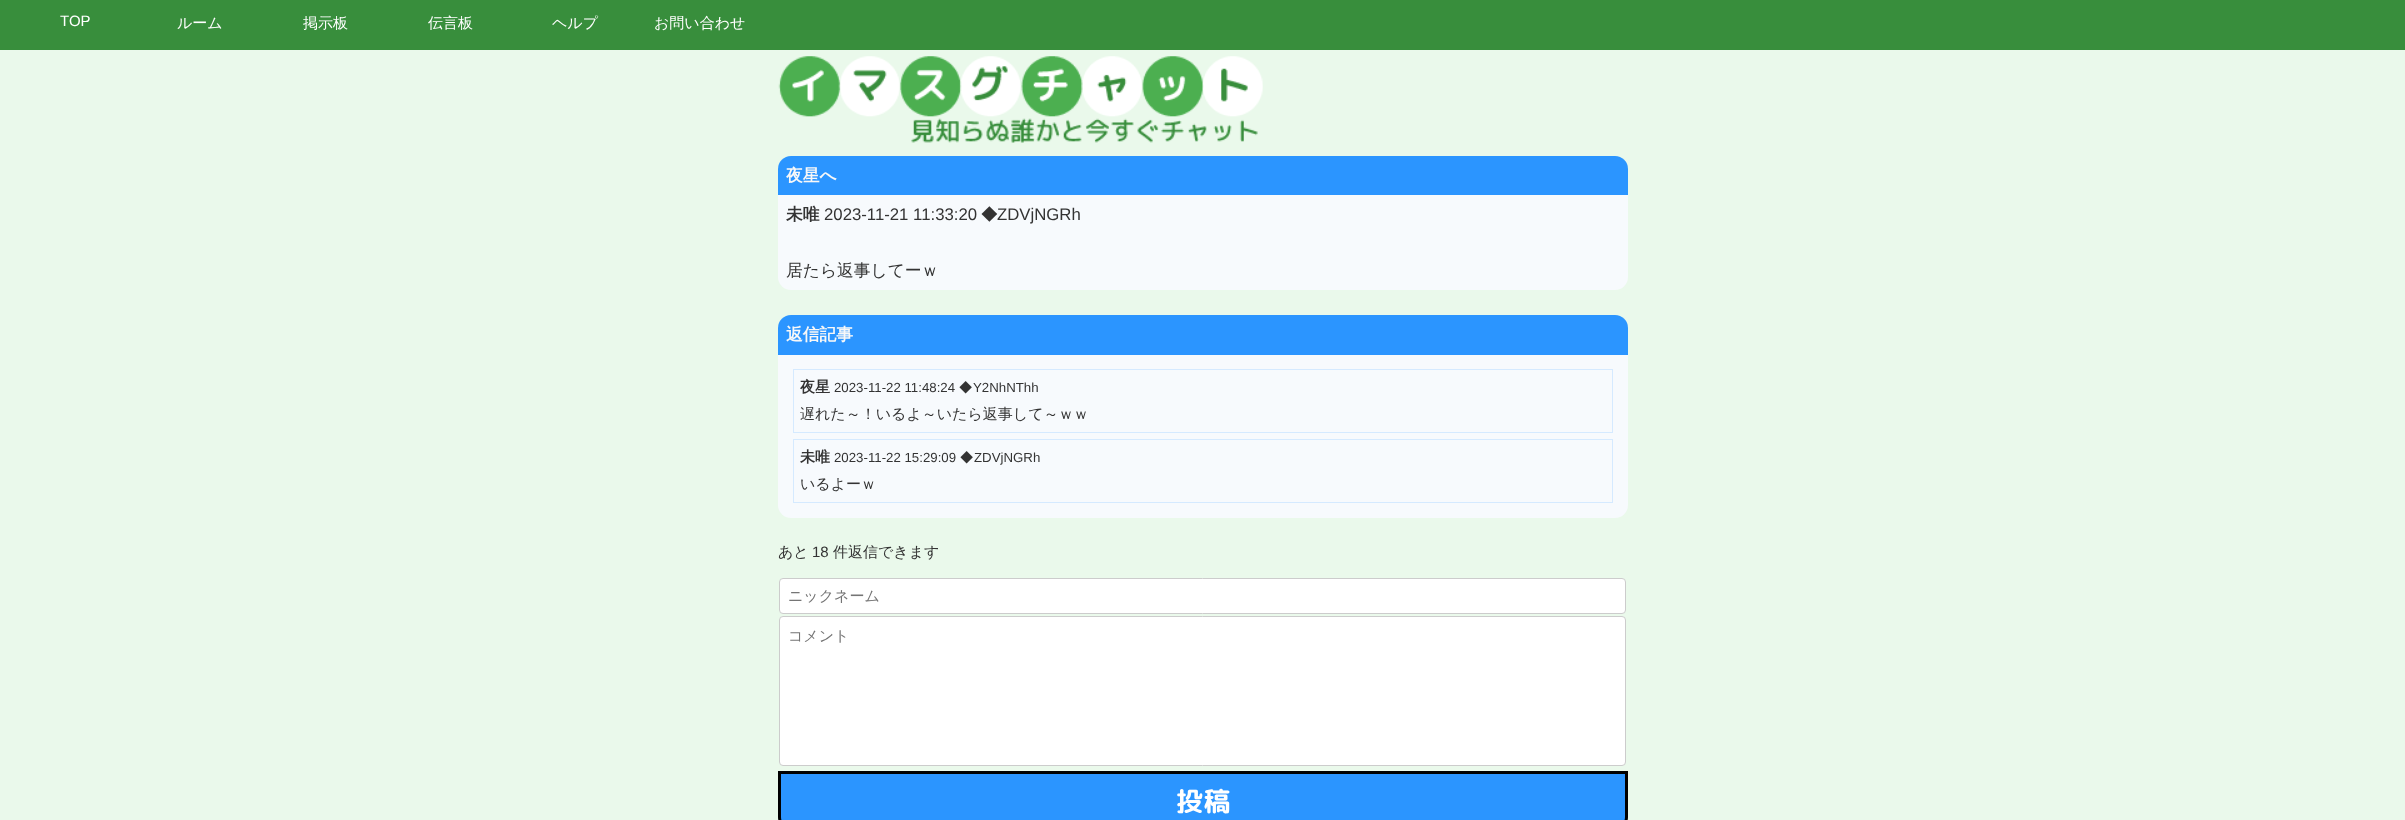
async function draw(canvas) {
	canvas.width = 2405;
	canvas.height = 820;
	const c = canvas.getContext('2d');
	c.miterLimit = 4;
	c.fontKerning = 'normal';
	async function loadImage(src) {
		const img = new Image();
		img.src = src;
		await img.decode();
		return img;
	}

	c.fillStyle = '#eaf9eb';
	c.fillRect(0, 0, 2405, 820);
	c.fillStyle = '#388e3c';
	c.fillRect(0, 0, 2405, 50);
	c.font = '15px Liberation Sans';
	c.fillStyle = '#fff';
	c.fillText('TOP', 60, 26);
	c.font = '500 15px WenQuanYi Zen Hei';
	for (const [text, x, y] of [
		['ルーム', 177, 28],
		['掲示板', 303, 28],
		['伝言板', 428, 28],
		['ヘルプ', 552, 28],
		['お問い合わせ', 654, 28],
	]) {
		c.fillText(text, x, y);
	}
	c.drawImage(await loadImage('img1.png'), 778, 56, 485, 87);
	c.fillStyle = '#2b95ff';
	c.beginPath();
	c.roundRect(778, 156, 850, 39, [13, 13, 0, 0]);
	c.fill();
	c.font = 'bold 16.75px WenQuanYi Zen Hei';
	c.fillStyle = '#f8f8f8';
	c.fillText('夜星へ', 786, 181);
	c.fillStyle = '#f7fafd';
	c.fillRect(778, 195, 850, 56);
	c.fillStyle = '#333';
	c.fillText('未唯', 786, 220);
	c.font = '16.75px Liberation Sans';
	c.fillText('2023-11-21 11:33:20', 824, 220);
	c.font = '500 16.75px WenQuanYi Zen Hei';
	c.fillText('◆', 981, 220);
	c.font = '16.75px Liberation Sans';
	c.fillText('ZDVjNGRh', 997, 220);
	c.fillStyle = '#f7fafd';
	c.beginPath();
	c.roundRect(778, 251, 850, 39, [0, 0, 13, 13]);
	c.fill();
	c.font = '500 16.75px WenQuanYi Zen Hei';
	c.fillStyle = '#333';
	c.fillText('居たら返事してーｗ', 786, 276);
	c.fillStyle = '#2b95ff';
	c.beginPath();
	c.roundRect(778, 315, 850, 40, [13, 13, 0, 0]);
	c.fill();
	c.font = 'bold 16.75px WenQuanYi Zen Hei';
	c.fillStyle = '#f8f8f8';
	c.fillText('返信記事', 786, 340);
	c.fillStyle = '#f7fafd';
	c.beginPath();
	c.roundRect(778, 355, 850, 163, [0, 0, 13, 13]);
	c.fill();
	c.strokeStyle = '#d5eaff';
	c.strokeRect(793.5, 369.5, 819, 63);
	c.font = 'bold 15px WenQuanYi Zen Hei';
	c.fillStyle = '#333';
	c.fillText('夜星', 800, 392);
	c.font = '13.25px Liberation Sans';
	c.fillText('2023-11-22 11:48:24', 834, 392);
	c.font = '500 13.25px WenQuanYi Zen Hei';
	c.fillText('◆', 959, 392);
	c.font = '13.25px Liberation Sans';
	c.fillText('Y2NhNThh', 973, 392);
	c.font = '500 15px WenQuanYi Zen Hei';
	c.fillText('遅れた～！いるよ～いたら返事して～ｗｗ', 800, 419);
	c.strokeRect(793.5, 439.5, 819, 63);
	c.font = 'bold 15px WenQuanYi Zen Hei';
	c.fillText('未唯', 800, 462);
	c.font = '13.25px Liberation Sans';
	c.fillText('2023-11-22 15:29:09', 834, 462);
	c.font = '500 13.25px WenQuanYi Zen Hei';
	c.fillText('◆', 960, 462);
	c.font = '13.25px Liberation Sans';
	c.fillText('ZDVjNGRh', 974, 462);
	c.font = '500 15px WenQuanYi Zen Hei';
	c.fillText('いるよーｗ', 800, 489);
	c.fillText('あと', 778, 557);
	c.font = '15px Liberation Sans';
	c.fillText('18', 812, 557);
	c.font = '500 15px WenQuanYi Zen Hei';
	c.fillText('件返信できます', 833, 557);
	c.fillStyle = '#fff';
	c.beginPath();
	c.roundRect(779.5, 578.5, 846, 35, 3.5);
	c.fill();
	c.strokeStyle = '#ccc';
	c.stroke();
	c.fillStyle = '#757575';
	c.fillText('ニックネーム', 788, 601);
	c.fillStyle = '#fff';
	c.beginPath();
	c.roundRect(779.5, 616.5, 846, 149, 3.5);
	c.fill();
	c.stroke();
	c.fillStyle = '#757575';
	c.fillText('コメント', 788, 641);
	c.fillStyle = '#2b95ff';
	c.beginPath();
	c.moveTo(779.5, 772.5);
	c.lineTo(1626.5, 772.5);
	c.lineTo(1626.5, 817);
	c.bezierCurveTo(1626.5, 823.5, 1621.5, 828.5, 1615, 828.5);
	c.lineTo(791, 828.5);
	c.bezierCurveTo(784.5, 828.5, 779.5, 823.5, 779.5, 817);
	c.closePath();
	c.fill();
	c.strokeStyle = '#000';
	c.lineWidth = 3;
	c.stroke();
	c.font = 'bold 27px "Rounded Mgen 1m"';
	c.fillStyle = '#fff';
	c.fillText('投稿', 1176, 811);
}

draw(document.querySelector('canvas'));
